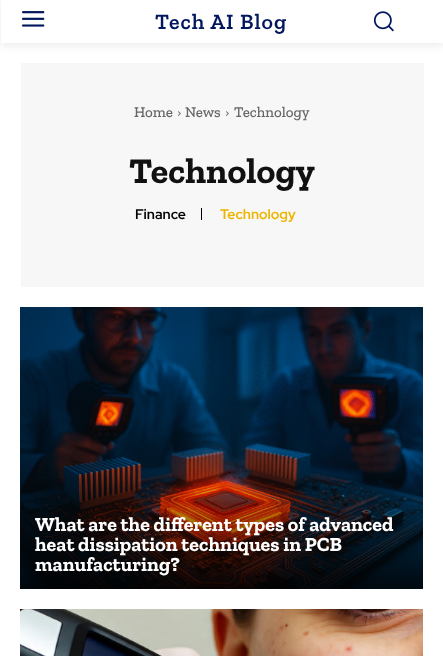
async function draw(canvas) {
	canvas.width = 443;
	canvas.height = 656;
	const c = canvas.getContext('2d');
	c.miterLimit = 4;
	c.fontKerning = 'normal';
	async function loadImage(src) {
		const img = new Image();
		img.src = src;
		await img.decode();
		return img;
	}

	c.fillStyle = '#fff';
	c.fillRect(0, 0, 443, 656);
	c.drawImage(await loadImage('img1.png'), 22, 11, 23, 16);
	c.drawImage(await loadImage('img2.png'), 373, 11, 21, 21);
	c.save();
	c.beginPath();
	c.moveTo(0, 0);
	c.lineTo(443, 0);
	c.lineTo(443, 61);
	c.lineTo(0, 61);
	c.closePath();
	c.moveTo(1, 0);
	c.lineTo(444, 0);
	c.lineTo(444, 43);
	c.lineTo(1, 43);
	c.closePath();
	c.clip('evenodd');
	c.fillStyle = '#00000017';
	c.filter = 'blur(5px)';
	c.beginPath();
	c.rect(1, 2, 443, 43);
	c.fill();
	c.filter = 'none';
	c.restore();
	c.letterSpacing = '1px';
	c.font = '600 22px Zilla Slab';
	c.fillStyle = '#01175e';
	c.fillText('Tech AI Blog', 155, 29);
	c.fillStyle = '#f7f7f7';
	c.fillRect(21, 63, 403, 224);
	c.letterSpacing = '0px';
	c.font = '500 15px Zilla Slab';
	c.fillStyle = '#666';
	c.fillText('Home', 134, 117);
	c.drawImage(await loadImage('img3.png'), 178, 111, 3, 5);
	c.fillText('News', 185, 117);
	c.drawImage(await loadImage('img3.png'), 226, 111, 3, 5);
	c.fillText('Technology', 234, 117);
	c.font = 'bold 36px Zilla Slab';
	c.fillStyle = '#111';
	c.fillText('Technology', 129, 183);
	c.font = 'bold 14px Red Hat Display';
	c.fillStyle = '#000';
	c.fillText('Finance', 135, 219);
	c.fillRect(201, 208, 1, 12);
	c.fillStyle = '#edb500';
	c.fillText('Technology', 220, 219);
	c.drawImage(await loadImage('img4.png'), 20, 307, 403, 282);
	c.font = 'bold 20px Zilla Slab';
	c.fillStyle = '#fff';
	for (const [text, x, y] of [
		['What are the different types of advanced', 35, 531],
		['heat dissipation techniques in PCB', 35, 551],
		['manufacturing?', 35, 571],
	]) {
		c.fillText(text, x, y);
	}
	c.drawImage(await loadImage('img5.png'), 20, 609, 403, 47);
}

draw(document.querySelector('canvas'));
